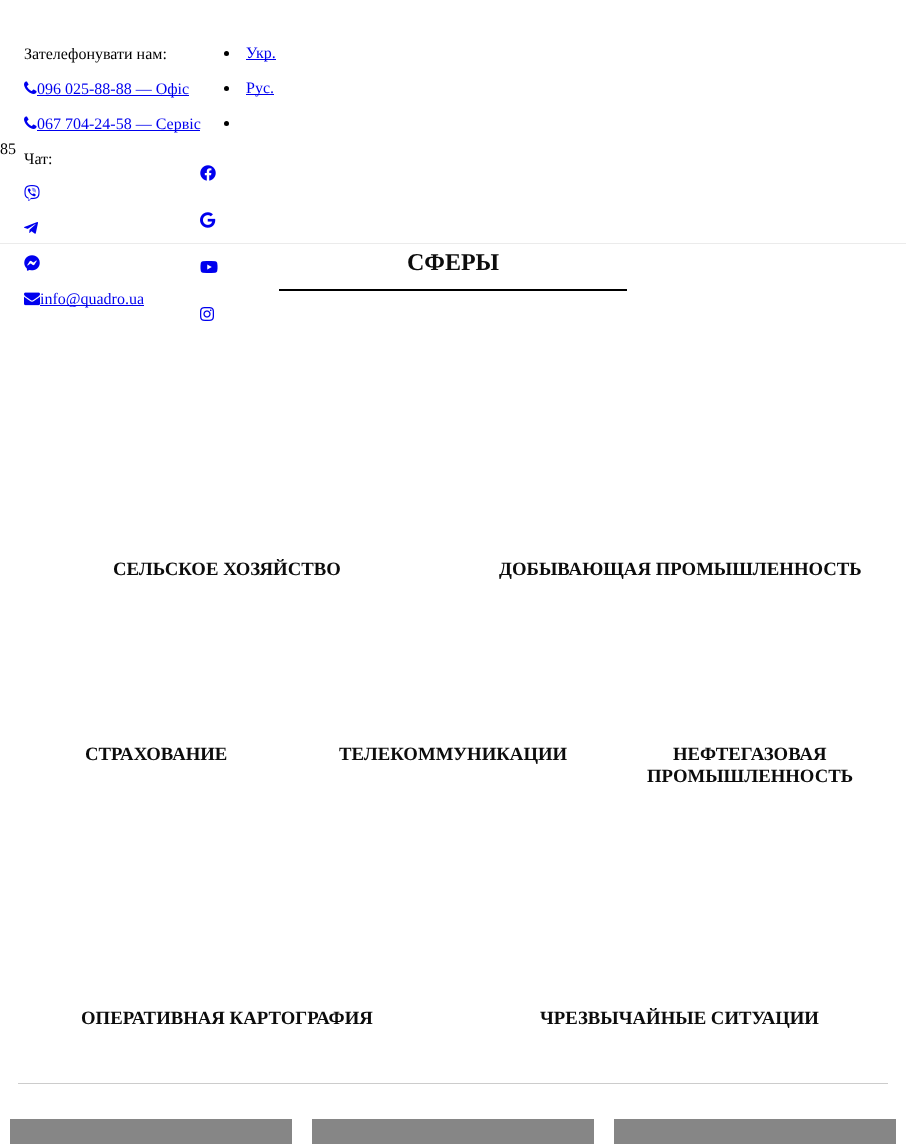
async function draw(canvas) {
	canvas.width = 906;
	canvas.height = 1144;
	const c = canvas.getContext('2d');
	c.miterLimit = 4;
	c.fontKerning = 'normal';
	async function loadImage(src) {
		const img = new Image();
		img.src = src;
		await img.decode();
		return img;
	}

	c.fillStyle = '#fff';
	c.fillRect(0, 0, 906, 1144);
	c.font = '16px Liberation Serif';
	c.fillStyle = '#000';
	c.fillText('85', 0, 154);
	c.fillText('Зателефонувати нам:', 24, 59);
	c.drawImage(await loadImage('img1.png'), 24, 81, 13, 13);
	c.fillStyle = '#00e';
	c.fillRect(37, 95, 152, 1);
	c.fillText('096 025-88-88 — Офіс', 37, 94);
	c.drawImage(await loadImage('img1.png'), 24, 116, 13, 13);
	c.fillRect(37, 130, 163, 1);
	c.fillText('067 704-24-58 — Сервіс', 37, 129);
	c.fillStyle = '#000';
	c.fillText('Чат:', 24, 164);
	c.drawImage(await loadImage('img2.png'), 24, 185, 16, 16);
	c.drawImage(await loadImage('img3.png'), 24, 222, 14, 12);
	c.drawImage(await loadImage('img4.png'), 24, 255, 16, 16);
	c.drawImage(await loadImage('img5.png'), 24, 292, 16, 14);
	c.fillStyle = '#00e';
	c.fillRect(40, 305, 104, 1);
	c.fillText('info@quadro.ua', 40, 304);
	c.fillStyle = '#000';
	c.beginPath();
	c.arc(226.5, 53.5, 2.5, 0, 2 * Math.PI);
	c.fill();
	c.fillStyle = '#00e';
	c.fillRect(246, 59, 30, 1);
	c.fillText('Укр.', 246, 58);
	c.fillStyle = '#000';
	c.beginPath();
	c.arc(226.5, 88.5, 2.5, 0, 2 * Math.PI);
	c.fill();
	c.fillStyle = '#00e';
	c.fillRect(246, 94, 28, 1);
	c.fillText('Рус.', 246, 93);
	c.fillStyle = '#000';
	c.beginPath();
	c.arc(226.5, 123.5, 2.5, 0, 2 * Math.PI);
	c.fill();
	c.drawImage(await loadImage('img6.png'), 200, 165, 16, 16);
	c.drawImage(await loadImage('img7.png'), 200, 212, 16, 16);
	c.drawImage(await loadImage('img8.png'), 200, 261, 18, 12);
	c.drawImage(await loadImage('img9.png'), 200, 307, 14, 14);
	c.fillStyle = '#ebebeb';
	c.fillRect(0, 243, 906, 1);
	c.font = 'bold 24px Liberation Serif';
	c.fillStyle = '#0c0c0c';
	c.fillText('СФЕРЫ', 407, 270);
	c.fillStyle = '#000';
	c.fillRect(279, 289, 348, 2);
	c.font = 'bold 18.75px Liberation Serif';
	c.fillStyle = '#0c0c0c';
	for (const [text, x, y] of [
		['СЕЛЬСКОЕ ХОЗЯЙСТВО', 113, 575],
		['ДОБЫВАЮЩАЯ ПРОМЫШЛЕННОСТЬ', 499, 575],
		['СТРАХОВАНИЕ', 85, 760],
		['ТЕЛЕКОММУНИКАЦИИ', 339, 760],
		['НЕФТЕГАЗОВАЯ', 673, 760],
		['ПРОМЫШЛЕННОСТЬ', 647, 782],
		['ОПЕРАТИВНАЯ КАРТОГРАФИЯ', 81, 1024],
		['ЧРЕЗВЫЧАЙНЫЕ СИТУАЦИИ', 540, 1024],
	]) {
		c.fillText(text, x, y);
	}
	for (const [x, y, w, h, color] of [
		[18, 1083, 870, 1, '#ccc'],
		[10, 1119, 282, 25, '#868686'],
		[312, 1119, 282, 25, '#868686'],
		[614, 1119, 282, 25, '#868686'],
	]) {
		c.fillStyle = color;
		c.fillRect(x, y, w, h);
	}
}

draw(document.querySelector('canvas'));
